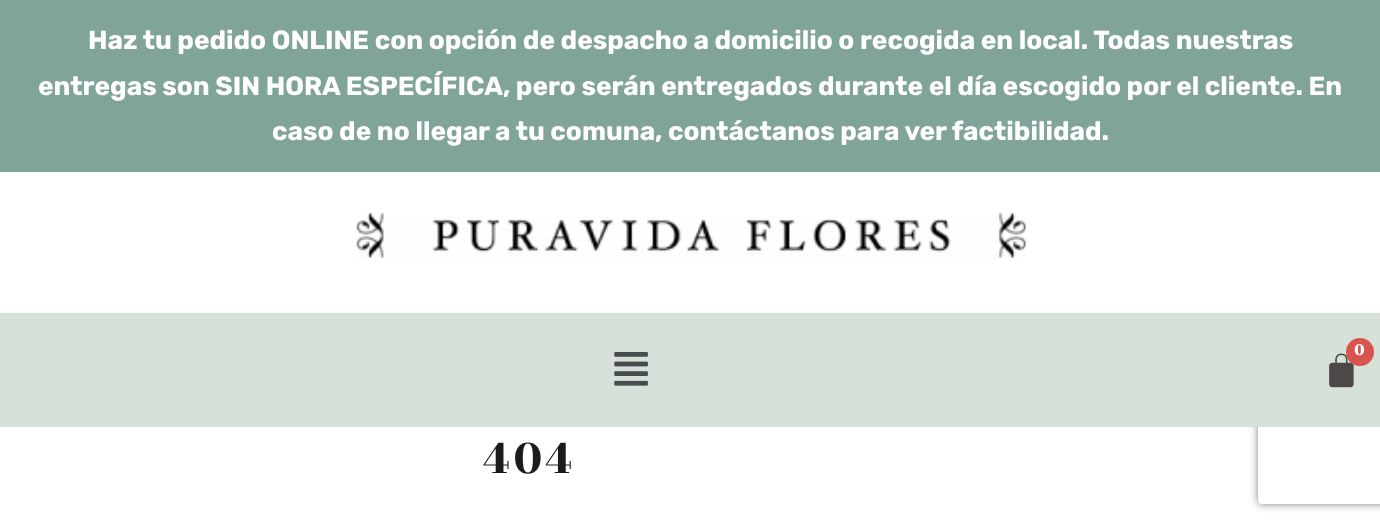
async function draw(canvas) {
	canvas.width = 1380;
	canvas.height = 528;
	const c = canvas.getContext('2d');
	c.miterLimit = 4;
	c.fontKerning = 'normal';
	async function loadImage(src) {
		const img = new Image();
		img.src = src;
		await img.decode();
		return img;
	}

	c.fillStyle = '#fff';
	c.fillRect(0, 0, 1380, 528);
	c.fillStyle = '#80a39a';
	c.fillRect(0, 0, 1380, 172);
	c.font = 'bold 26.25px Rubik';
	c.fillStyle = '#fff';
	for (const [text, x, y] of [
		['Haz tu pedido ONLINE con opción de despacho a domicilio o recogida en local. Todas nuestras', 88, 49],
		['entregas son SIN HORA ESPECÍFICA, pero serán entregados durante el día escogido por el cliente. En', 38, 95],
		['caso de no llegar a tu comuna, contáctanos para ver factibilidad.', 272, 140],
	]) {
		c.fillText(text, x, y);
	}
	c.drawImage(await loadImage('img1.png'), 356, 211, 670, 48);
	c.save();
	c.beginPath();
	c.moveTo(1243, 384);
	c.lineTo(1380, 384);
	c.lineTo(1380, 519);
	c.lineTo(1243, 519);
	c.closePath();
	c.moveTo(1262, 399);
	c.lineTo(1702, 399);
	c.bezierCurveTo(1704, 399, 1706, 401, 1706, 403);
	c.lineTo(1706, 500);
	c.bezierCurveTo(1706, 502, 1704, 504, 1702, 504);
	c.lineTo(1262, 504);
	c.bezierCurveTo(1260, 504, 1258, 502, 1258, 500);
	c.lineTo(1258, 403);
	c.bezierCurveTo(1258, 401, 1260, 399, 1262, 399);
	c.closePath();
	c.clip('evenodd');
	c.fillStyle = '#808080';
	c.filter = 'blur(4.5px)';
	c.beginPath();
	c.roundRect(1258, 399, 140, 105, 4);
	c.fill();
	c.filter = 'none';
	c.restore();
	c.fillStyle = '#d6e1da';
	c.fillRect(0, 313, 1380, 114);
	c.drawImage(await loadImage('img2.png'), 1329, 353, 25, 35);
	c.fillStyle = '#d9534f';
	c.beginPath();
	c.arc(1360, 352, 14, 0, 2 * Math.PI);
	c.fill();
	c.font = 'bold 18px Rozha One';
	c.fillStyle = '#fff';
	c.fillText('0', 1354, 355);
	c.drawImage(await loadImage('img3.png'), 614, 352, 34, 34);
	c.letterSpacing = '2.5px';
	c.font = '52px Rozha One';
	c.fillStyle = '#1b1b1b';
	c.fillText('404', 483, 473);
}

draw(document.querySelector('canvas'));
